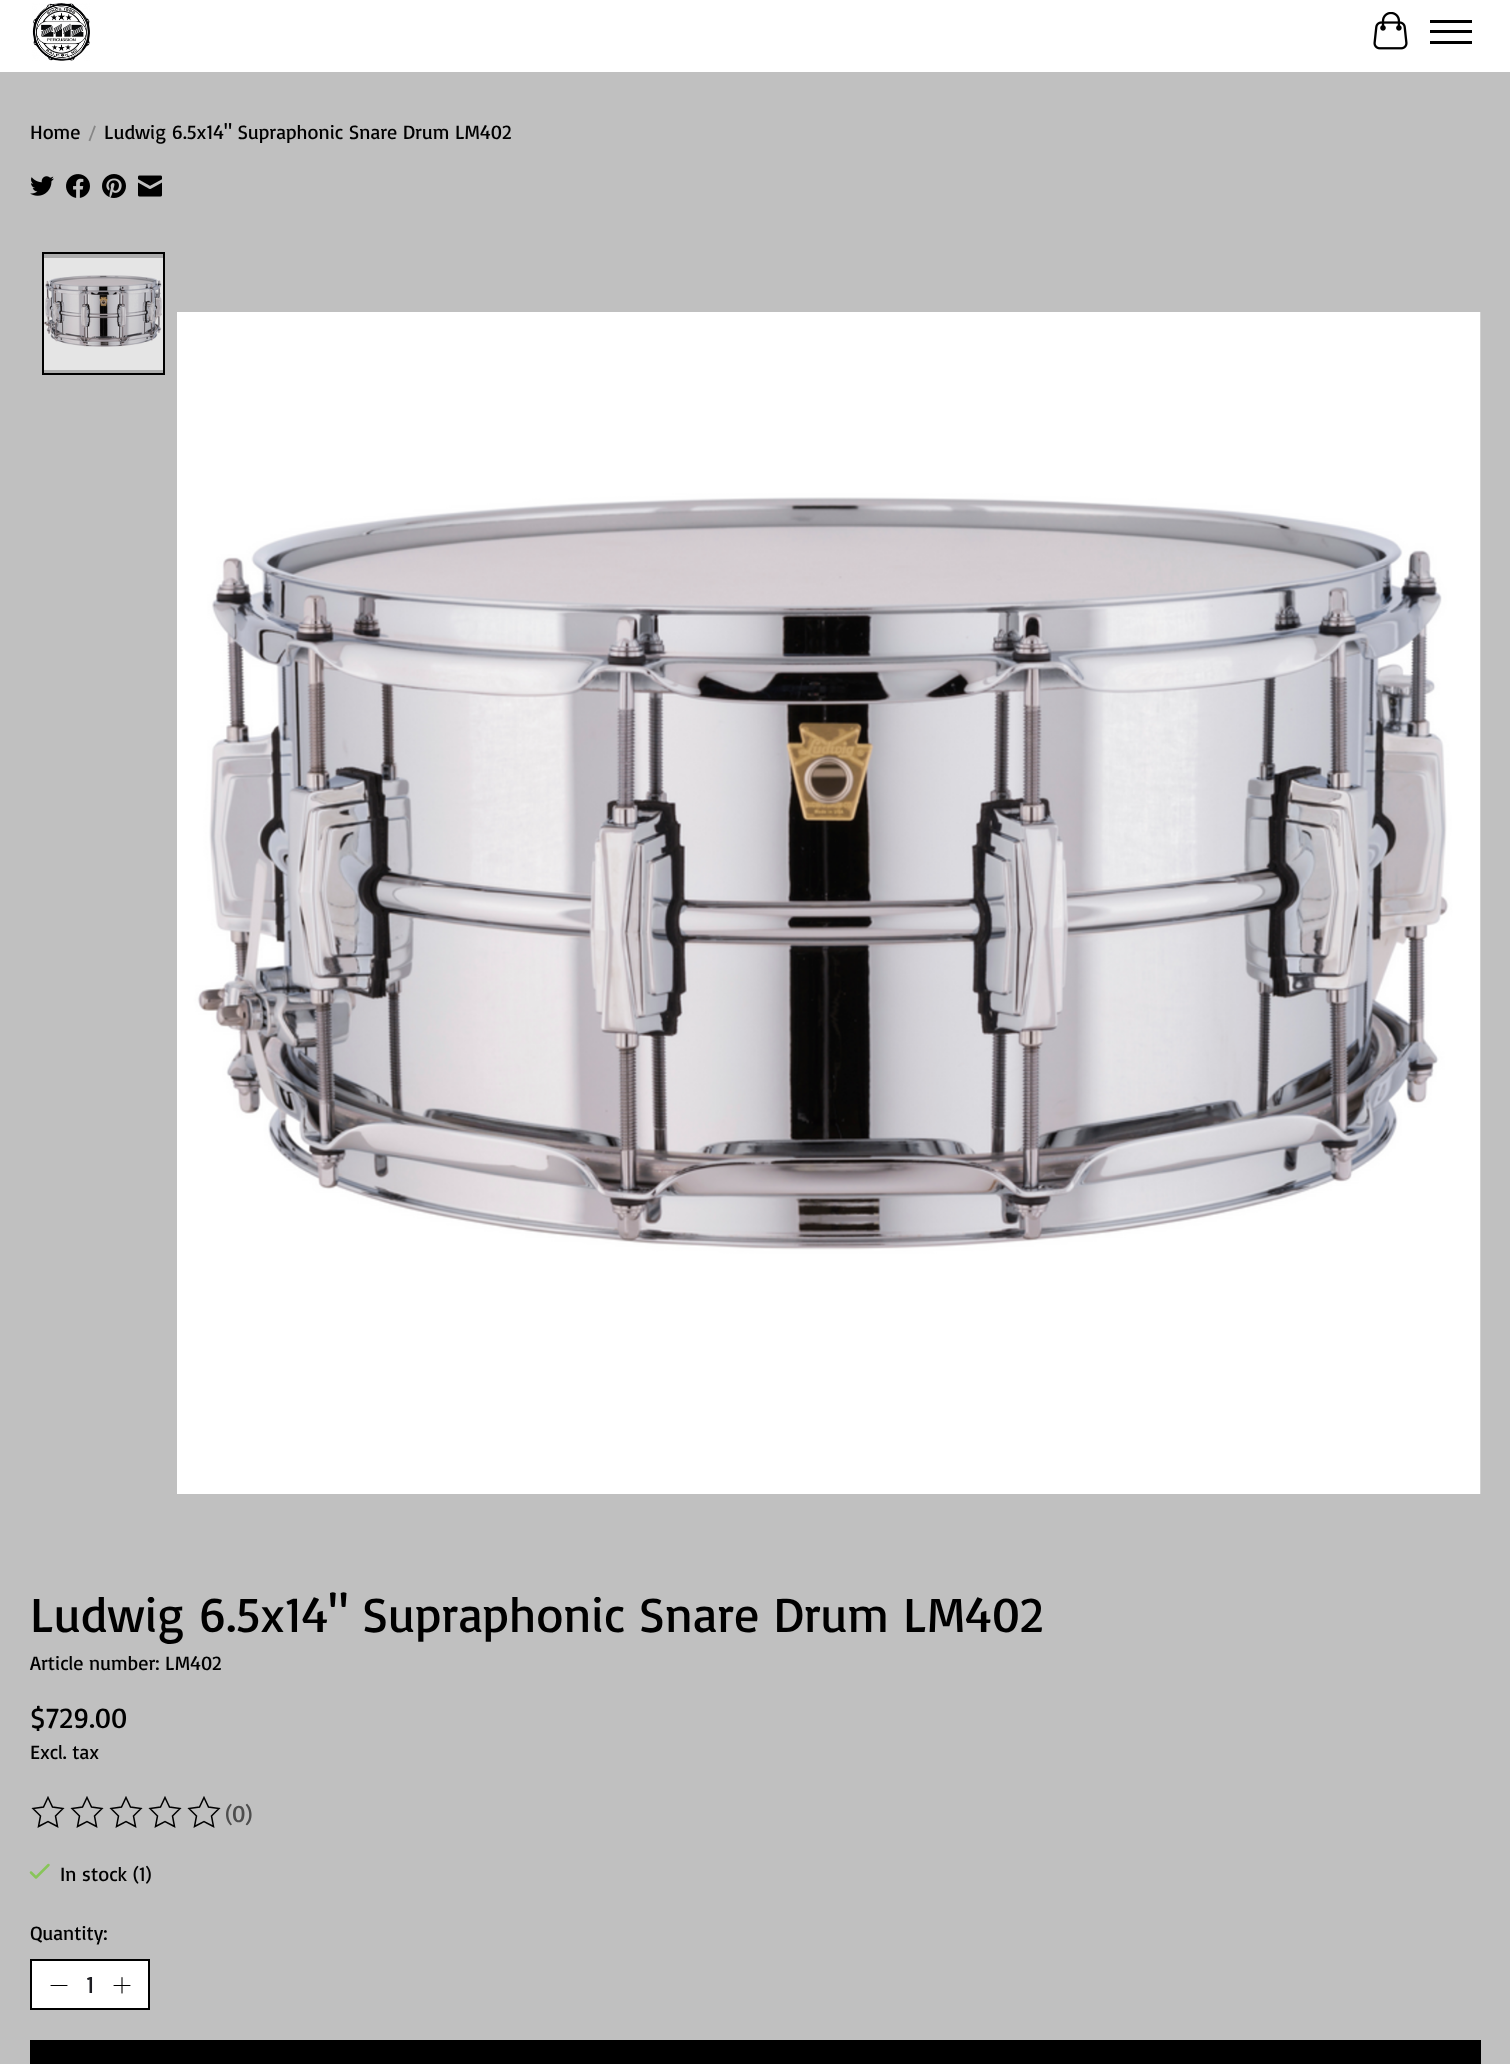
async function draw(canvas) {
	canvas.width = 1510;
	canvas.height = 2064;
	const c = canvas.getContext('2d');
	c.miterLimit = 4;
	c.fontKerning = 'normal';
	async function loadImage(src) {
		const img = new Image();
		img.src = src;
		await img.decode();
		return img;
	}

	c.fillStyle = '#c0c0c0';
	c.fillRect(0, 0, 1510, 2064);
	c.fillStyle = '#adadad';
	c.fillRect(44, 254, 119, 119);
	c.fillStyle = '#fff';
	c.fillRect(0, 0, 1510, 72);
	c.drawImage(await loadImage('img1.png'), 32, 3, 58, 58);
	c.drawImage(await loadImage('img2.png'), 1373, 12, 35, 38);
	for (const [x, y, w, h, color] of [
		[1430, 30, 42, 3, '#000'],
		[1430, 20, 42, 3, '#000'],
		[1430, 41, 42, 3, '#000'],
	]) {
		c.fillStyle = color;
		c.fillRect(x, y, w, h);
	}
	c.font = '20px Basic';
	c.fillText('Home', 30, 139);
	c.fillStyle = '#868686';
	c.fillText('/', 88, 139);
	c.fillStyle = '#000';
	c.fillText('Ludwig 6.5x14" Supraphonic Snare Drum LM402', 104, 139);
	c.drawImage(await loadImage('img3.png'), 30, 176, 24, 20);
	c.drawImage(await loadImage('img4.png'), 66, 174, 24, 24);
	c.drawImage(await loadImage('img5.png'), 102, 174, 24, 24);
	c.drawImage(await loadImage('img6.png'), 138, 175, 24, 22);
	c.drawImage(await loadImage('img7.png'), 44, 258, 119, 112);
	c.strokeStyle = '#000';
	c.lineWidth = 2;
	c.strokeRect(43, 253, 121, 121);
	c.drawImage(await loadImage('img8.png'), 177, 312, 1304, 1182);
	c.font = '49.75px Basic';
	c.fillText('Ludwig 6.5x14" Supraphonic Snare Drum LM402', 30, 1632);
	c.font = '20px Basic';
	c.fillText('Article number: LM402', 30, 1670);
	c.font = '29px Basic';
	c.fillText('$729.00', 30, 1728);
	c.font = '20px Basic';
	c.fillText('Excl. tax', 30, 1759);
	c.beginPath();
	c.moveTo(48, 1797.5);
	c.lineTo(52.5, 1807);
	c.lineTo(63, 1808.5);
	c.lineTo(55.5, 1816);
	c.lineTo(57.5, 1826.5);
	c.lineTo(48, 1821.5);
	c.lineTo(38.5, 1826.5);
	c.lineTo(40.5, 1816);
	c.lineTo(33, 1808.5);
	c.lineTo(43.5, 1807);
	c.closePath();
	c.lineWidth = 1.5;
	c.stroke();
	c.beginPath();
	c.moveTo(87, 1797.5);
	c.lineTo(91.5, 1807);
	c.lineTo(102, 1808.5);
	c.lineTo(94.5, 1816);
	c.lineTo(96.5, 1826.5);
	c.lineTo(87, 1821.5);
	c.lineTo(77.5, 1826.5);
	c.lineTo(79.5, 1816);
	c.lineTo(72, 1808.5);
	c.lineTo(82.5, 1807);
	c.closePath();
	c.stroke();
	c.beginPath();
	c.moveTo(126, 1797.5);
	c.lineTo(130.5, 1807);
	c.lineTo(141, 1808.5);
	c.lineTo(133.5, 1816);
	c.lineTo(135.5, 1826.5);
	c.lineTo(126, 1821.5);
	c.lineTo(116.5, 1826.5);
	c.lineTo(118.5, 1816);
	c.lineTo(111, 1808.5);
	c.lineTo(121.5, 1807);
	c.closePath();
	c.stroke();
	c.beginPath();
	c.moveTo(165, 1797.5);
	c.lineTo(169.5, 1807);
	c.lineTo(180, 1808.5);
	c.lineTo(172.5, 1816);
	c.lineTo(174.5, 1826.5);
	c.lineTo(165, 1821.5);
	c.lineTo(155.5, 1826.5);
	c.lineTo(157.5, 1816);
	c.lineTo(150, 1808.5);
	c.lineTo(160.5, 1807);
	c.closePath();
	c.stroke();
	c.beginPath();
	c.moveTo(204, 1797.5);
	c.lineTo(208.5, 1807);
	c.lineTo(219, 1808.5);
	c.lineTo(211.5, 1816);
	c.lineTo(213.5, 1826.5);
	c.lineTo(204, 1821.5);
	c.lineTo(194.5, 1826.5);
	c.lineTo(196.5, 1816);
	c.lineTo(189, 1808.5);
	c.lineTo(199.5, 1807);
	c.closePath();
	c.stroke();
	c.font = '24px Basic';
	c.fillStyle = '#4d4d4d';
	c.fillText('(0)', 225, 1822);
	c.beginPath();
	c.moveTo(31, 1872.5);
	c.lineTo(36, 1877.5);
	c.lineTo(48.5, 1865);
	c.strokeStyle = '#88c559';
	c.lineWidth = 2.5;
	c.lineCap = 'round';
	c.lineJoin = 'round';
	c.stroke();
	c.font = '20px Basic';
	c.fillStyle = '#000';
	c.fillText('In stock (1)', 60, 1881);
	c.fillText('Quantity:', 30, 1940);
	c.fillStyle = '#fff';
	c.beginPath();
	c.rect(31, 1960, 118, 49);
	c.fill();
	c.strokeStyle = '#000';
	c.lineWidth = 2;
	c.lineJoin = 'miter';
	c.stroke();
	c.beginPath();
	c.moveTo(51, 1985.5);
	c.lineTo(67, 1985.5);
	c.lineWidth = 1.1;
	c.lineJoin = 'round';
	c.stroke();
	c.font = '24px Basic';
	c.fillStyle = '#1c1c21';
	c.fillText('1', 86, 1993);
	c.beginPath();
	c.moveTo(122, 1977.5);
	c.lineTo(122, 1993);
	c.moveTo(114, 1985.5);
	c.lineTo(130, 1985.5);
	c.stroke();
	c.fillStyle = '#000';
	c.fillRect(30, 2040, 1451, 24);
}

draw(document.querySelector('canvas'));
